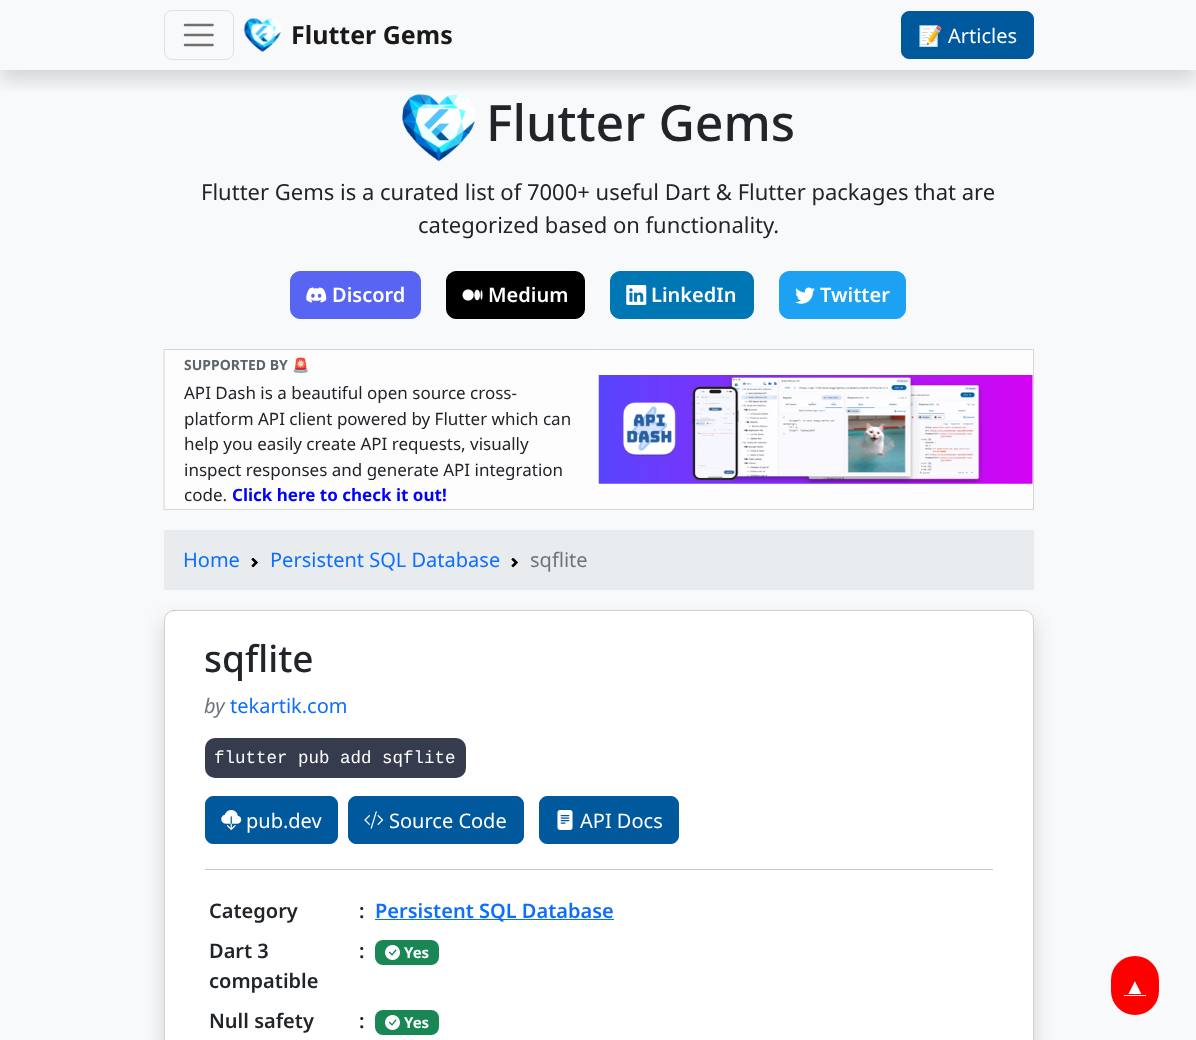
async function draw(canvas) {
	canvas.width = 1196;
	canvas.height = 1040;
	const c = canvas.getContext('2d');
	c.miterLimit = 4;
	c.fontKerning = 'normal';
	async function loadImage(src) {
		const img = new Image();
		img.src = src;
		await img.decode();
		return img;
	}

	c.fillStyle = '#f8f9fa';
	c.fillRect(0, 0, 1196, 1040);
	c.drawImage(await loadImage('img2.png'), 402, 94, 73, 68);
	c.save();
	c.beginPath();
	c.rect(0, 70, 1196, 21);
	c.clip();
	c.fillStyle = '#00000026';
	c.filter = 'blur(10px)';
	c.beginPath();
	c.rect(0, 10, 1196, 70);
	c.fill();
	c.filter = 'none';
	c.restore();
	c.beginPath();
	c.roundRect(164.5, 10.5, 69, 49, 7.5);
	c.strokeStyle = '#dfe0e1';
	c.stroke();
	c.beginPath();
	c.moveTo(185, 25);
	c.lineTo(212.5, 25);
	c.moveTo(185, 35);
	c.lineTo(212.5, 35);
	c.moveTo(185, 45);
	c.lineTo(212.5, 45);
	c.strokeStyle = '#707071';
	c.lineWidth = 2.5;
	c.lineCap = 'round';
	c.stroke();
	c.drawImage(await loadImage('img1.png'), 243, 18, 38, 34);
	c.font = 'bold 25px Noto Sans';
	c.fillStyle = '#191919';
	c.fillText('Flutter Gems', 291, 44);
	c.fillStyle = '#00599d';
	c.beginPath();
	c.roundRect(901.5, 11.5, 132, 47, 7.5);
	c.fill();
	c.strokeStyle = '#00599d';
	c.lineWidth = 1;
	c.stroke();
	c.font = '20px Noto Color Emoji';
	c.fillStyle = '#fff';
	c.fillText('📝', 918, 43);
	c.font = '20px Noto Sans';
	c.fillText('Articles', 948, 43);
	c.font = '500 50px Noto Sans';
	c.fillStyle = '#212529';
	c.fillText('Flutter Gems', 486, 141);
	c.font = '22px Noto Sans';
	c.fillText('Flutter Gems is a curated list of 7000+ useful Dart & Flutter packages that are', 201, 200);
	c.fillText('categorized based on functionality.', 418, 233);
	c.fillStyle = '#5865f2';
	c.beginPath();
	c.roundRect(290.5, 271.5, 130, 47, 9.5);
	c.fill();
	c.strokeStyle = '#5865f2';
	c.stroke();
	c.drawImage(await loadImage('img3.png'), 306, 287, 21, 16);
	c.font = '600 20px Noto Sans';
	c.fillStyle = '#fff';
	c.fillText('Discord', 332, 302);
	c.fillStyle = '#000';
	c.beginPath();
	c.roundRect(446.5, 271.5, 138, 47, 9.5);
	c.fill();
	c.strokeStyle = '#000';
	c.stroke();
	c.drawImage(await loadImage('img4.png'), 462, 289, 21, 12);
	c.fillStyle = '#fff';
	c.fillText('Medium', 488, 302);
	c.fillStyle = '#0077b5';
	c.beginPath();
	c.roundRect(610.5, 271.5, 143, 47, 9.5);
	c.fill();
	c.strokeStyle = '#0077b5';
	c.stroke();
	c.drawImage(await loadImage('img5.png'), 626, 285, 21, 20);
	c.fillStyle = '#fff';
	c.fillText('LinkedIn', 651, 302);
	c.fillStyle = '#1da1f2';
	c.beginPath();
	c.roundRect(779.5, 271.5, 126, 47, 9.5);
	c.fill();
	c.strokeStyle = '#1da1f2';
	c.stroke();
	c.drawImage(await loadImage('img6.png'), 795, 287, 20, 17);
	c.fillStyle = '#fff';
	c.fillText('Twitter', 820, 302);
	c.fillStyle = '#fdfdfd';
	c.beginPath();
	c.rect(164.5, 349.5, 869, 160);
	c.fill();
	c.strokeStyle = '#d4d5d6';
	c.stroke();
	c.font = 'bold 14px Noto Sans';
	c.fillStyle = '#5d646b';
	c.fillText('SUPPORTED BY', 184, 370);
	c.font = 'bold 14px Noto Color Emoji';
	c.fillText('🚨', 292, 370);
	c.font = '17px Noto Sans';
	c.fillStyle = '#212529';
	for (const [text, x, y] of [
		['API Dash is a beautiful open source cross-', 184, 399],
		['platform API client powered by Flutter which can', 184, 425],
		['help you easily create API requests, visually', 184, 450],
		['inspect responses and generate API integration', 184, 476],
		['code.', 184, 501],
	]) {
		c.fillText(text, x, y);
	}
	c.font = 'bold 17px Noto Sans';
	c.fillStyle = '#00f';
	c.fillText('Click here to check it out!', 232, 501);
	c.drawImage(await loadImage('img7.png'), 598, 375, 435, 109);
	c.fillStyle = '#e9ecef';
	c.fillRect(164, 530, 870, 60);
	c.font = '20px Noto Sans';
	c.fillStyle = '#0d6efd';
	c.fillText('Home', 183, 567);
	c.drawImage(await loadImage('img8.png'), 251, 558, 7, 10);
	c.fillText('Persistent SQL Database', 270, 567);
	c.drawImage(await loadImage('img9.png'), 511, 558, 7, 10);
	c.fillStyle = '#6c757d';
	c.fillText('sqflite', 530, 567);
	c.fillStyle = '#00000026';
	c.filter = 'blur(10px)';
	c.beginPath();
	c.roundRect(164, 620, 870, 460, 10);
	c.fill();
	c.filter = 'none';
	c.fillStyle = '#fff';
	c.beginPath();
	c.roundRect(164, 610, 870, 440, 10);
	c.fill();
	c.beginPath();
	c.roundRect(164.5, 610.5, 869, 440, 9.5);
	c.strokeStyle = '#0000002e';
	c.stroke();
	c.font = '500 37px Noto Sans';
	c.fillStyle = '#212529';
	c.fillText('sqflite', 204, 672);
	c.font = 'italic 20px Noto Sans';
	c.fillStyle = '#6c757d';
	c.fillText('by', 204, 713);
	c.font = '20px Noto Sans';
	c.fillStyle = '#0d6efd';
	c.fillText('tekartik.com', 230, 713);
	c.fillStyle = '#373b4e';
	c.beginPath();
	c.roundRect(205, 738, 261, 40, 10);
	c.fill();
	c.font = '17.5px Liberation Mono';
	c.fillStyle = '#fff';
	c.fillText('flutter pub add sqflite', 214, 763);
	c.fillStyle = '#00599d';
	c.beginPath();
	c.roundRect(205.5, 796.5, 132, 47, 7.5);
	c.fill();
	c.strokeStyle = '#00599d';
	c.stroke();
	c.drawImage(await loadImage('img10.png'), 221, 810, 21, 20);
	c.font = '20px Noto Sans';
	c.fillStyle = '#fff';
	c.fillText('pub.dev', 246, 828);
	c.fillStyle = '#00599d';
	c.beginPath();
	c.roundRect(348.5, 796.5, 175, 47, 7.5);
	c.fill();
	c.stroke();
	c.drawImage(await loadImage('img11.png'), 364, 811, 20, 18);
	c.fillStyle = '#fff';
	c.fillText('Source Code', 389, 828);
	c.fillStyle = '#00599d';
	c.beginPath();
	c.roundRect(539.5, 796.5, 139, 47, 7.5);
	c.fill();
	c.stroke();
	c.drawImage(await loadImage('img12.png'), 557, 810, 16, 20);
	c.fillStyle = '#fff';
	c.fillText('API Docs', 580, 828);
	c.fillStyle = '#c8c9ca';
	c.fillRect(205, 869, 788, 1);
	c.font = '600 20px Noto Sans';
	c.fillStyle = '#212529';
	c.fillText('Category', 209, 918);
	c.fillText(':', 359, 918);
	c.fillStyle = '#0d6efd';
	c.fillRect(375, 919, 239, 1);
	c.fillText('Persistent SQL Database', 375, 918);
	c.fillStyle = '#212529';
	for (const [text, x, y] of [
		['Dart 3', 209, 958],
		['compatible', 209, 988],
		[':', 359, 958],
	]) {
		c.fillText(text, x, y);
	}
	c.fillStyle = '#198754';
	c.beginPath();
	c.roundRect(375, 940, 64, 25, 8);
	c.fill();
	c.drawImage(await loadImage('img13.png'), 385, 945, 15, 15);
	c.font = 'bold 15px Noto Sans';
	c.fillStyle = '#fff';
	c.fillText('Yes', 404, 958);
	c.font = '600 20px Noto Sans';
	c.fillStyle = '#212529';
	c.fillText('Null safety', 209, 1028);
	c.fillText(':', 359, 1028);
	c.fillStyle = '#198754';
	c.beginPath();
	c.roundRect(375, 1010, 64, 25, 8);
	c.fill();
	c.drawImage(await loadImage('img13.png'), 385, 1015, 15, 15);
	c.font = 'bold 15px Noto Sans';
	c.fillStyle = '#fff';
	c.fillText('Yes', 404, 1028);
	c.fillStyle = '#f00';
	c.beginPath();
	c.roundRect(1111, 956, 48, 59, 24);
	c.fill();
	c.font = '22px Liberation Sans';
	c.fillStyle = '#fff';
	c.fillText('▲', 1124, 994);
	c.fillRect(1124, 995, 22, 1);
}

draw(document.querySelector('canvas'));
